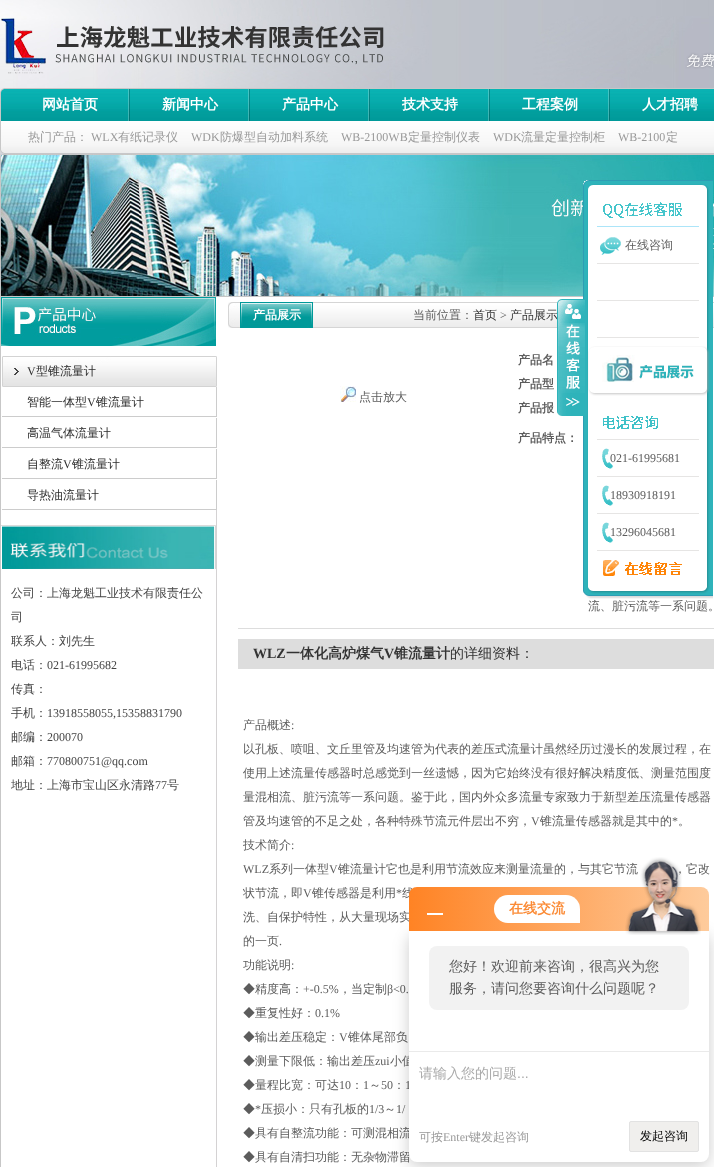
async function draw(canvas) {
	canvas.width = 714;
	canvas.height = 1167;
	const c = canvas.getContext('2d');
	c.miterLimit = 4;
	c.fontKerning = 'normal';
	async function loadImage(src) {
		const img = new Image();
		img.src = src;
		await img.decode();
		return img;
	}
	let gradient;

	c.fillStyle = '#fff';
	c.fillRect(0, 0, 714, 1167);
	c.drawImage(await loadImage('img1.png'), 0, 0, 714, 88);
	c.drawImage(await loadImage('img2.png'), 1, 18, 713, 56);
	c.drawImage(await loadImage('img3.png'), 4, 88, 710, 66);
	c.drawImage(await loadImage('img4.png'), 0, 88, 4, 66);
	c.drawImage(await loadImage('img5.png'), 128, 89, 2, 32);
	c.font = 'bold 14px WenQuanYi Zen Hei';
	c.fillText('网站首页', 42, 109);
	c.drawImage(await loadImage('img5.png'), 248, 89, 2, 32);
	c.fillText('新闻中心', 162, 109);
	c.drawImage(await loadImage('img5.png'), 368, 89, 2, 32);
	c.fillText('产品中心', 282, 109);
	c.drawImage(await loadImage('img5.png'), 488, 89, 2, 32);
	c.fillText('技术支持', 402, 109);
	c.drawImage(await loadImage('img5.png'), 608, 89, 2, 32);
	c.fillText('工程案例', 522, 109);
	c.fillText('人才招聘', 642, 109);
	c.font = '500 12px WenQuanYi Zen Hei';
	c.fillStyle = '#999';
	c.fillText('热门产品：', 28, 141);
	c.font = '12px Liberation Serif';
	c.fillText('WLX', 91, 141);
	c.font = '500 12px WenQuanYi Zen Hei';
	c.fillText('有纸记录仪', 118, 141);
	c.font = '12px Liberation Serif';
	c.fillText('WDK', 191, 141);
	c.font = '500 12px WenQuanYi Zen Hei';
	c.fillText('防爆型自动加料系统', 220, 141);
	c.font = '12px Liberation Serif';
	c.fillText('WB-2100WB', 341, 141);
	c.font = '500 12px WenQuanYi Zen Hei';
	c.fillText('定量控制仪表', 408, 141);
	c.font = '12px Liberation Serif';
	c.fillText('WDK', 493, 141);
	c.font = '500 12px WenQuanYi Zen Hei';
	c.fillText('流量定量控制柜', 521, 141);
	c.font = '12px Liberation Serif';
	c.fillText('WB-2100', 618, 141);
	c.font = '500 12px WenQuanYi Zen Hei';
	c.fillText('定', 666, 141);
	c.drawImage(await loadImage('img6.png'), 0, 154, 714, 142);
	c.fillStyle = '#d4d2d3';
	c.fillRect(216, 510, 1, 657);
	c.strokeStyle = '#c7c7c7';
	c.strokeRect(0.5, 296.5, 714, 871);
	c.drawImage(await loadImage('img7.png'), 1, 297, 215, 49);
	c.drawImage(await loadImage('img8.png'), 2, 356, 215, 31);
	c.font = '12px Liberation Serif';
	c.fillStyle = '#2d2d2d';
	c.fillText('V', 27, 375);
	c.font = '500 12px WenQuanYi Zen Hei';
	c.fillText('型锥流量计', 36, 375);
	c.fillStyle = '#ccc';
	c.fillRect(216, 387, 1, 30);
	c.fillRect(2, 416, 215, 1);
	c.fillStyle = '#2d2d2d';
	c.fillText('智能一体型', 27, 406);
	c.font = '12px Liberation Serif';
	c.fillText('V', 87, 406);
	c.font = '500 12px WenQuanYi Zen Hei';
	c.fillText('锥流量计', 96, 406);
	c.fillStyle = '#ccc';
	c.fillRect(216, 418, 1, 30);
	c.fillRect(2, 447, 215, 1);
	c.fillStyle = '#2d2d2d';
	c.fillText('高温气体流量计', 27, 437);
	c.fillStyle = '#ccc';
	c.fillRect(216, 449, 1, 30);
	c.fillRect(2, 478, 215, 1);
	c.fillStyle = '#2d2d2d';
	c.fillText('自整流', 27, 468);
	c.font = '12px Liberation Serif';
	c.fillText('V', 63, 468);
	c.font = '500 12px WenQuanYi Zen Hei';
	c.fillText('锥流量计', 72, 468);
	c.fillStyle = '#ccc';
	c.fillRect(216, 480, 1, 30);
	c.fillRect(2, 509, 215, 1);
	c.fillStyle = '#2d2d2d';
	c.fillText('导热油流量计', 27, 499);
	c.drawImage(await loadImage('img9.png'), 1, 525, 215, 44);
	c.fillStyle = '#444';
	for (const [text, x, y] of [
		['公司：上海龙魁工业技术有限责任公', 11, 597],
		['司', 11, 621],
		['联系人：刘先生', 11, 645],
		['电话：', 11, 669],
	]) {
		c.fillText(text, x, y);
	}
	c.font = '12px Liberation Serif';
	c.fillText('021-61995682', 47, 669);
	c.font = '500 12px WenQuanYi Zen Hei';
	c.fillText('传真：', 11, 693);
	c.fillText('手机：', 11, 717);
	c.font = '12px Liberation Serif';
	c.fillText('13918558055,15358831790', 47, 717);
	c.font = '500 12px WenQuanYi Zen Hei';
	c.fillText('邮编：', 11, 741);
	c.font = '12px Liberation Serif';
	c.fillText('200070', 47, 741);
	c.font = '500 12px WenQuanYi Zen Hei';
	c.fillText('邮箱：', 11, 765);
	c.font = '12px Liberation Serif';
	c.fillText('770800751@qq.com', 47, 765);
	c.font = '500 12px WenQuanYi Zen Hei';
	c.fillText('地址：上海市宝山区永清路', 11, 789);
	c.font = '12px Liberation Serif';
	c.fillText('77', 155, 789);
	c.font = '500 12px WenQuanYi Zen Hei';
	c.fillText('号', 167, 789);
	c.drawImage(await loadImage('img10.png'), 228, 302, 486, 26);
	c.drawImage(await loadImage('img11.png'), 240, 302, 73, 26);
	c.font = 'bold 12px WenQuanYi Zen Hei';
	c.fillStyle = '#fff';
	c.fillText('产品展示', 253, 319);
	c.font = '500 12px WenQuanYi Zen Hei';
	c.fillStyle = '#5c5c5c';
	c.fillText('当前位置：', 413, 319);
	c.fillStyle = '#333';
	c.fillText('首页', 473, 319);
	c.font = '12px Liberation Serif';
	c.fillStyle = '#5c5c5c';
	c.fillText('>', 500, 319);
	c.font = '500 12px WenQuanYi Zen Hei';
	c.fillStyle = '#333';
	c.fillText('产品展示', 510, 319);
	c.fillStyle = '#ddd';
	c.fillRect(238, 628, 476, 1);
	c.drawImage(await loadImage('img12.png'), 340, 386, 16, 16);
	c.fillStyle = '#5c5c5c';
	c.fillText('点击放大', 359, 401);
	c.font = 'bold 12px WenQuanYi Zen Hei';
	for (const [text, x, y] of [
		['产品名', 518, 364],
		['产品型', 518, 388],
		['产品报', 518, 412],
		['产品特点：', 518, 442],
	]) {
		c.fillText(text, x, y);
	}
	c.font = '500 12px WenQuanYi Zen Hei';
	c.fillText('流、脏污流等一系问题。', 588, 610);
	c.fillStyle = '#ddd';
	c.fillRect(238, 639, 476, 30);
	c.font = 'bold 14px Liberation Serif';
	c.fillStyle = '#333';
	c.fillText('WLZ', 253, 658);
	c.font = 'bold 14px WenQuanYi Zen Hei';
	c.fillText('一体化高炉煤气', 286, 658);
	c.font = 'bold 14px Liberation Serif';
	c.fillText('V', 384, 658);
	c.font = 'bold 14px WenQuanYi Zen Hei';
	c.fillText('锥流量计', 394, 658);
	c.font = '500 14px WenQuanYi Zen Hei';
	c.fillText('的详细资料：', 450, 658);
	c.font = '500 12px WenQuanYi Zen Hei';
	c.fillStyle = '#5c5c5c';
	c.fillText('产品概述', 243, 729);
	c.font = '12px Liberation Serif';
	c.fillText(':', 291, 729);
	c.font = '500 12px WenQuanYi Zen Hei';
	for (const [text, x, y] of [
		['以孔板、喷咀、文丘里管及均速管为代表的差压式流量计虽然经历过漫长的发展过程，在', 243, 753],
		['使用上述流量传感器时总感觉到一丝遗憾，因为它始终没有很好解决精度低、测量范围度', 243, 777],
		['量混相流、脏污流等一系问题。鉴于此，国内外众多流量专家致力于新型差压流量传感器', 243, 801],
		['管及均速管的不足之处，各种特殊节流元件层出不穷，', 243, 825],
	]) {
		c.fillText(text, x, y);
	}
	c.font = '12px Liberation Serif';
	c.fillText('V', 531, 825);
	c.font = '500 12px WenQuanYi Zen Hei';
	c.fillText('锥流量传感器就是其中的', 540, 825);
	c.font = '12px Liberation Serif';
	c.fillText('*', 672, 825);
	c.font = '500 12px WenQuanYi Zen Hei';
	c.fillText('。', 678, 825);
	c.fillText('技术简介', 243, 849);
	c.font = '12px Liberation Serif';
	c.fillText(':', 291, 849);
	c.fillText('WLZ', 243, 873);
	c.font = '500 12px WenQuanYi Zen Hei';
	c.fillText('系列一体型', 269, 873);
	c.font = '12px Liberation Serif';
	c.fillText('V', 329, 873);
	c.font = '500 12px WenQuanYi Zen Hei';
	for (const [text, x, y] of [
		['锥流量计它也是利用节流效应来测量流量的，与其它节流', 338, 873],
		['，它改', 674, 873],
		['状节流，即', 243, 897],
	]) {
		c.fillText(text, x, y);
	}
	c.font = '12px Liberation Serif';
	c.fillText('V', 303, 897);
	c.font = '500 12px WenQuanYi Zen Hei';
	c.fillText('锥传感器是利用', 312, 897);
	c.font = '12px Liberation Serif';
	c.fillText('*', 396, 897);
	c.font = '500 12px WenQuanYi Zen Hei';
	for (const [text, x, y] of [
		['线', 402, 897],
		['洗、自保护特性，从大量现场实', 243, 921],
		['的一页', 243, 945],
	]) {
		c.fillText(text, x, y);
	}
	c.font = '12px Liberation Serif';
	c.fillText('.', 279, 945);
	c.font = '500 12px WenQuanYi Zen Hei';
	c.fillText('功能说明', 243, 969);
	c.font = '12px Liberation Serif';
	c.fillText(':', 291, 969);
	c.font = '500 12px WenQuanYi Zen Hei';
	c.fillText('◆精度高：', 243, 993);
	c.font = '12px Liberation Serif';
	c.fillText('+-0.5%', 303, 993);
	c.font = '500 12px WenQuanYi Zen Hei';
	c.fillText('，当定制', 339, 993);
	c.font = '12px Liberation Serif';
	c.fillText('β<0.', 387, 993);
	c.font = '500 12px WenQuanYi Zen Hei';
	c.fillText('◆重复性好：', 243, 1017);
	c.font = '12px Liberation Serif';
	c.fillText('0.1%', 315, 1017);
	c.font = '500 12px WenQuanYi Zen Hei';
	c.fillText('◆输出差压稳定：', 243, 1041);
	c.font = '12px Liberation Serif';
	c.fillText('V', 339, 1041);
	c.font = '500 12px WenQuanYi Zen Hei';
	c.fillText('锥体尾部负', 348, 1041);
	c.fillText('◆测量下限低：输出差压', 243, 1065);
	c.font = '12px Liberation Serif';
	c.fillText('zui', 375, 1065);
	c.font = '500 12px WenQuanYi Zen Hei';
	c.fillText('小值', 390, 1065);
	c.fillText('◆量程比宽：可达', 243, 1089);
	c.font = '12px Liberation Serif';
	c.fillText('10', 339, 1089);
	c.font = '500 12px WenQuanYi Zen Hei';
	c.fillText('：', 351, 1089);
	c.font = '12px Liberation Serif';
	c.fillText('1', 363, 1089);
	c.font = '500 12px WenQuanYi Zen Hei';
	c.fillText('～', 369, 1089);
	c.font = '12px Liberation Serif';
	c.fillText('50', 381, 1089);
	c.font = '500 12px WenQuanYi Zen Hei';
	c.fillText('：', 393, 1089);
	c.font = '12px Liberation Serif';
	c.fillText('1', 405, 1089);
	c.font = '500 12px WenQuanYi Zen Hei';
	c.fillText('◆', 243, 1113);
	c.font = '12px Liberation Serif';
	c.fillText('*', 255, 1113);
	c.font = '500 12px WenQuanYi Zen Hei';
	c.fillText('压损小：只有孔板的', 261, 1113);
	c.font = '12px Liberation Serif';
	c.fillText('1/3', 369, 1113);
	c.font = '500 12px WenQuanYi Zen Hei';
	c.fillText('～', 384, 1113);
	c.font = '12px Liberation Serif';
	c.fillText('1/', 396, 1113);
	c.font = '500 12px WenQuanYi Zen Hei';
	c.fillText('◆具有自整流功能：可测混相流', 243, 1137);
	c.fillText('◆具有自清扫功能：无杂物滞留', 243, 1161);
	c.drawImage(await loadImage('img16.png'), 583, 190, 130, 397);
	c.drawImage(await loadImage('img13.png'), 557, 299, 28, 117);
	c.drawImage(await loadImage('img14.png'), 583, 587, 130, 12);
	c.drawImage(await loadImage('img15.png'), 583, 180, 130, 10);
	c.fillStyle = '#ace5f9';
	c.fillRect(597, 226, 102, 1);
	c.drawImage(await loadImage('img17.png'), 603, 202, 79, 16);
	c.fillStyle = '#e6e5e4';
	c.fillRect(597, 263, 102, 1);
	c.drawImage(await loadImage('img18.png'), 600, 237, 21, 18);
	c.fillStyle = '#5c5c5c';
	c.fillText('在线咨询', 625, 249);
	c.fillStyle = '#e6e5e4';
	c.fillRect(597, 300, 102, 1);
	c.fillRect(597, 337, 102, 1);
	c.drawImage(await loadImage('img19.png'), 588, 346, 122, 50);
	c.fillRect(597, 439, 102, 1);
	c.drawImage(await loadImage('img20.png'), 603, 416, 55, 13);
	c.fillRect(597, 476, 102, 1);
	c.drawImage(await loadImage('img21.png'), 602, 448, 12, 21);
	c.font = '12px Liberation Serif';
	c.fillStyle = '#5c5c5c';
	c.fillText('021-61995681', 610, 462);
	c.fillStyle = '#e6e5e4';
	c.fillRect(597, 513, 102, 1);
	c.drawImage(await loadImage('img21.png'), 602, 485, 12, 21);
	c.fillStyle = '#5c5c5c';
	c.fillText('18930918191', 610, 499);
	c.fillStyle = '#e6e5e4';
	c.fillRect(597, 550, 102, 1);
	c.drawImage(await loadImage('img21.png'), 602, 522, 12, 21);
	c.fillStyle = '#5c5c5c';
	c.fillText('13296045681', 610, 536);
	c.drawImage(await loadImage('img22.png'), 603, 560, 79, 16);
	c.fillStyle = '#00000033';
	c.filter = 'blur(8px)';
	c.beginPath();
	c.roundRect(409, 935, 300, 231, 8);
	c.fill();
	c.filter = 'none';
	gradient = c.createLinearGradient(409, 909, 709, 909);
	gradient.addColorStop(0, '#ff8324');
	gradient.addColorStop(1, '#fecb9c');
	c.fillStyle = gradient;
	c.beginPath();
	c.roundRect(409, 887, 300, 44, [8, 8, 0, 0]);
	c.fill();
	c.fillStyle = '#fff';
	c.fillRect(427, 913, 16, 2);
	c.beginPath();
	c.roundRect(494, 895, 86, 28, [14, 14, 0, 14]);
	c.fill();
	c.font = 'bold 14px WenQuanYi Zen Hei';
	c.fillStyle = '#fb8b36';
	c.fillText('在线交流', 509, 913);
	c.fillStyle = '#fff';
	c.beginPath();
	c.roundRect(409, 931, 300, 231, [0, 0, 8, 8]);
	c.fill();
	c.drawImage(await loadImage('img23.png'), 625, 857, 76, 78);
	c.fillStyle = '#f2f2f2';
	c.beginPath();
	c.roundRect(429, 946, 260, 64, 8);
	c.fill();
	c.font = '500 14px WenQuanYi Zen Hei';
	c.fillStyle = '#5c5c5c';
	c.fillText('您好！欢迎前来咨询，很高兴为您', 449, 971);
	c.fillText('服务，请问您要咨询什么问题呢？', 449, 993);
	c.fillStyle = '#eaeaea';
	c.fillRect(409, 1051, 300, 1);
	c.fillStyle = '#aaa';
	c.fillText('请输入您的问题', 419, 1078);
	c.font = '14px Liberation Sans';
	c.fillText('...', 517, 1078);
	c.font = '500 12px WenQuanYi Zen Hei';
	c.fillStyle = '#999';
	c.fillText('可按', 419, 1141);
	c.font = '12px Liberation Serif';
	c.fillText('Enter', 443, 1141);
	c.font = '500 12px WenQuanYi Zen Hei';
	c.fillText('键发起咨询', 469, 1141);
	c.fillStyle = '#f0efed';
	c.beginPath();
	c.roundRect(629.5, 1121.5, 69, 30, 1.5);
	c.fill();
	c.strokeStyle = '#e2e2e2';
	c.stroke();
	c.fillStyle = '#000';
	c.fillText('发起咨询', 640, 1140);
}

draw(document.querySelector('canvas'));
